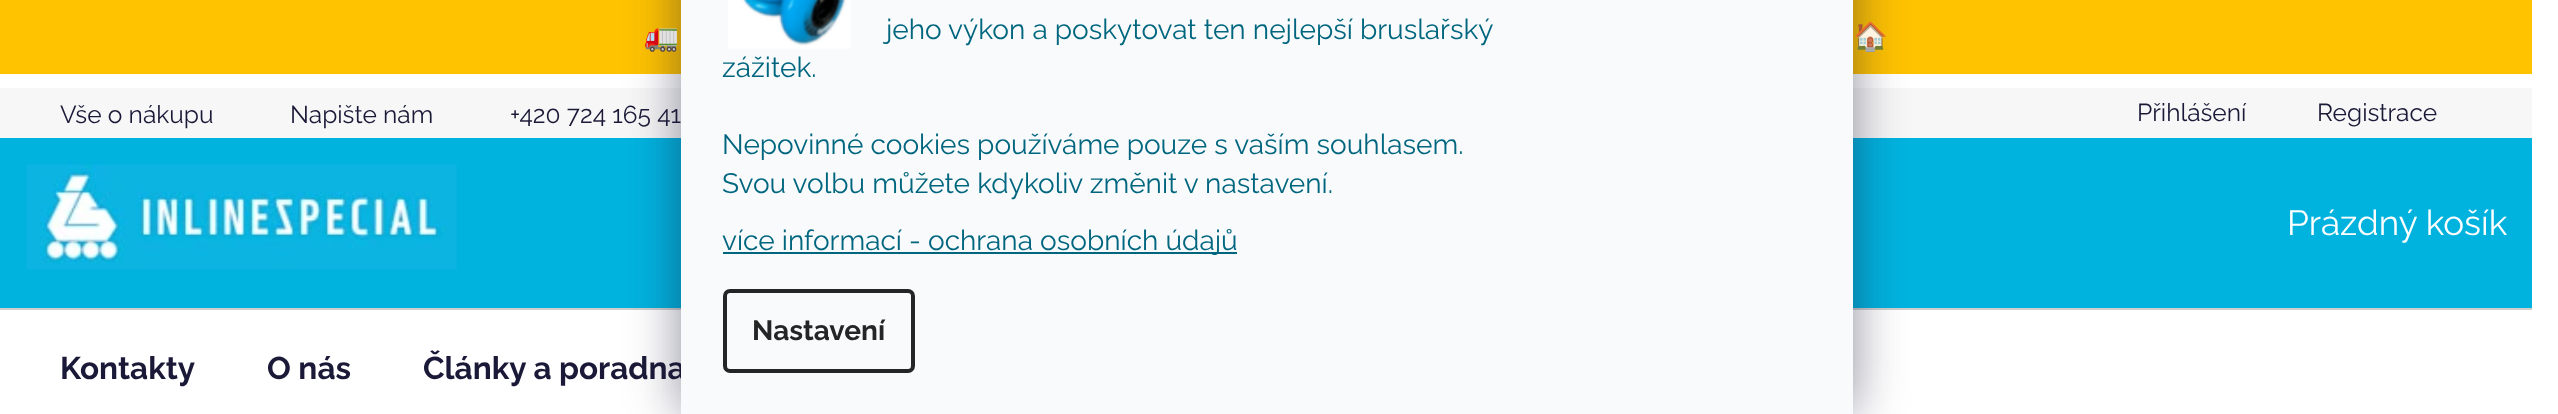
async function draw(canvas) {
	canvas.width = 2558;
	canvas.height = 414;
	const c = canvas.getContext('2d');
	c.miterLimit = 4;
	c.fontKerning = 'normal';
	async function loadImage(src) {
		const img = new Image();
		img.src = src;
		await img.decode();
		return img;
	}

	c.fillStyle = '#fff';
	c.fillRect(0, 0, 2558, 414);
	for (const [x, y, w, h, color] of [
		[0, 0, 2532, 74, '#ffc300'],
		[0, 88, 2532, 50, '#f7f7f7'],
		[0, 138, 2532, 170, '#00b3df'],
		[0, 308, 2532, 2, '#cfcfcf'],
	]) {
		c.fillStyle = color;
		c.fillRect(x, y, w, h);
	}
	c.fillStyle = '#1b193980';
	c.filter = 'blur(26px)';
	c.beginPath();
	c.roundRect(681, -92, 1172, 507, 14);
	c.fill();
	c.filter = 'none';
	c.font = 'bold 31.5px Raleway';
	c.fillStyle = '#1a1937';
	c.fillText('Články a poradna', 423, 379);
	c.fillStyle = '#f8fafb';
	c.fillRect(681, 0, 1172, 414);
	c.drawImage(await loadImage('img1.png'), 728, 0, 123, 49);
	c.font = '28px Raleway';
	c.fillStyle = '#00667f';
	for (const [text, x, y] of [
		['jeho výkon a poskytovat ten nejlepší bruslařský', 886, 39],
		['zážitek.', 722, 77],
		['Nepovinné cookies používáme pouze s vaším souhlasem.', 722, 154],
		['Svou volbu můžete kdykoliv změnit v nastavení.', 722, 193],
	]) {
		c.fillText(text, x, y);
	}
	c.fillRect(723, 252, 514, 2);
	c.fillText('více informací - ochrana osobních údajů', 722, 250);
	c.beginPath();
	c.roundRect(725, 291, 188, 80, 5);
	c.strokeStyle = '#252525';
	c.lineWidth = 4;
	c.stroke();
	c.font = 'bold 28px Raleway';
	c.fillStyle = '#252525';
	c.fillText('Nastavení', 752, 340);
	c.font = '28px Noto Color Emoji';
	c.fillStyle = '#000';
	c.fillText('🚛', 644, 46);
	c.fillText('🏠', 1853, 46);
	c.font = '24.5px Raleway';
	c.fillStyle = '#1a1937';
	for (const [text, x, y] of [
		['Vše o nákupu', 60, 123],
		['Napište nám', 290, 123],
		['+420 724 165 41', 510, 123],
		['Přihlášení', 2137, 121],
		['Registrace', 2317, 121],
	]) {
		c.fillText(text, x, y);
	}
	c.drawImage(await loadImage('img2.png'), 26, 164, 431, 106);
	c.font = '35px Raleway';
	c.fillStyle = '#fff';
	c.fillText('Prázdný košík', 2287, 235);
	c.font = 'bold 31.5px Raleway';
	c.fillStyle = '#1a1937';
	c.fillText('Kontakty', 60, 379);
	c.fillText('O nás', 267, 379);
}

draw(document.querySelector('canvas'));
